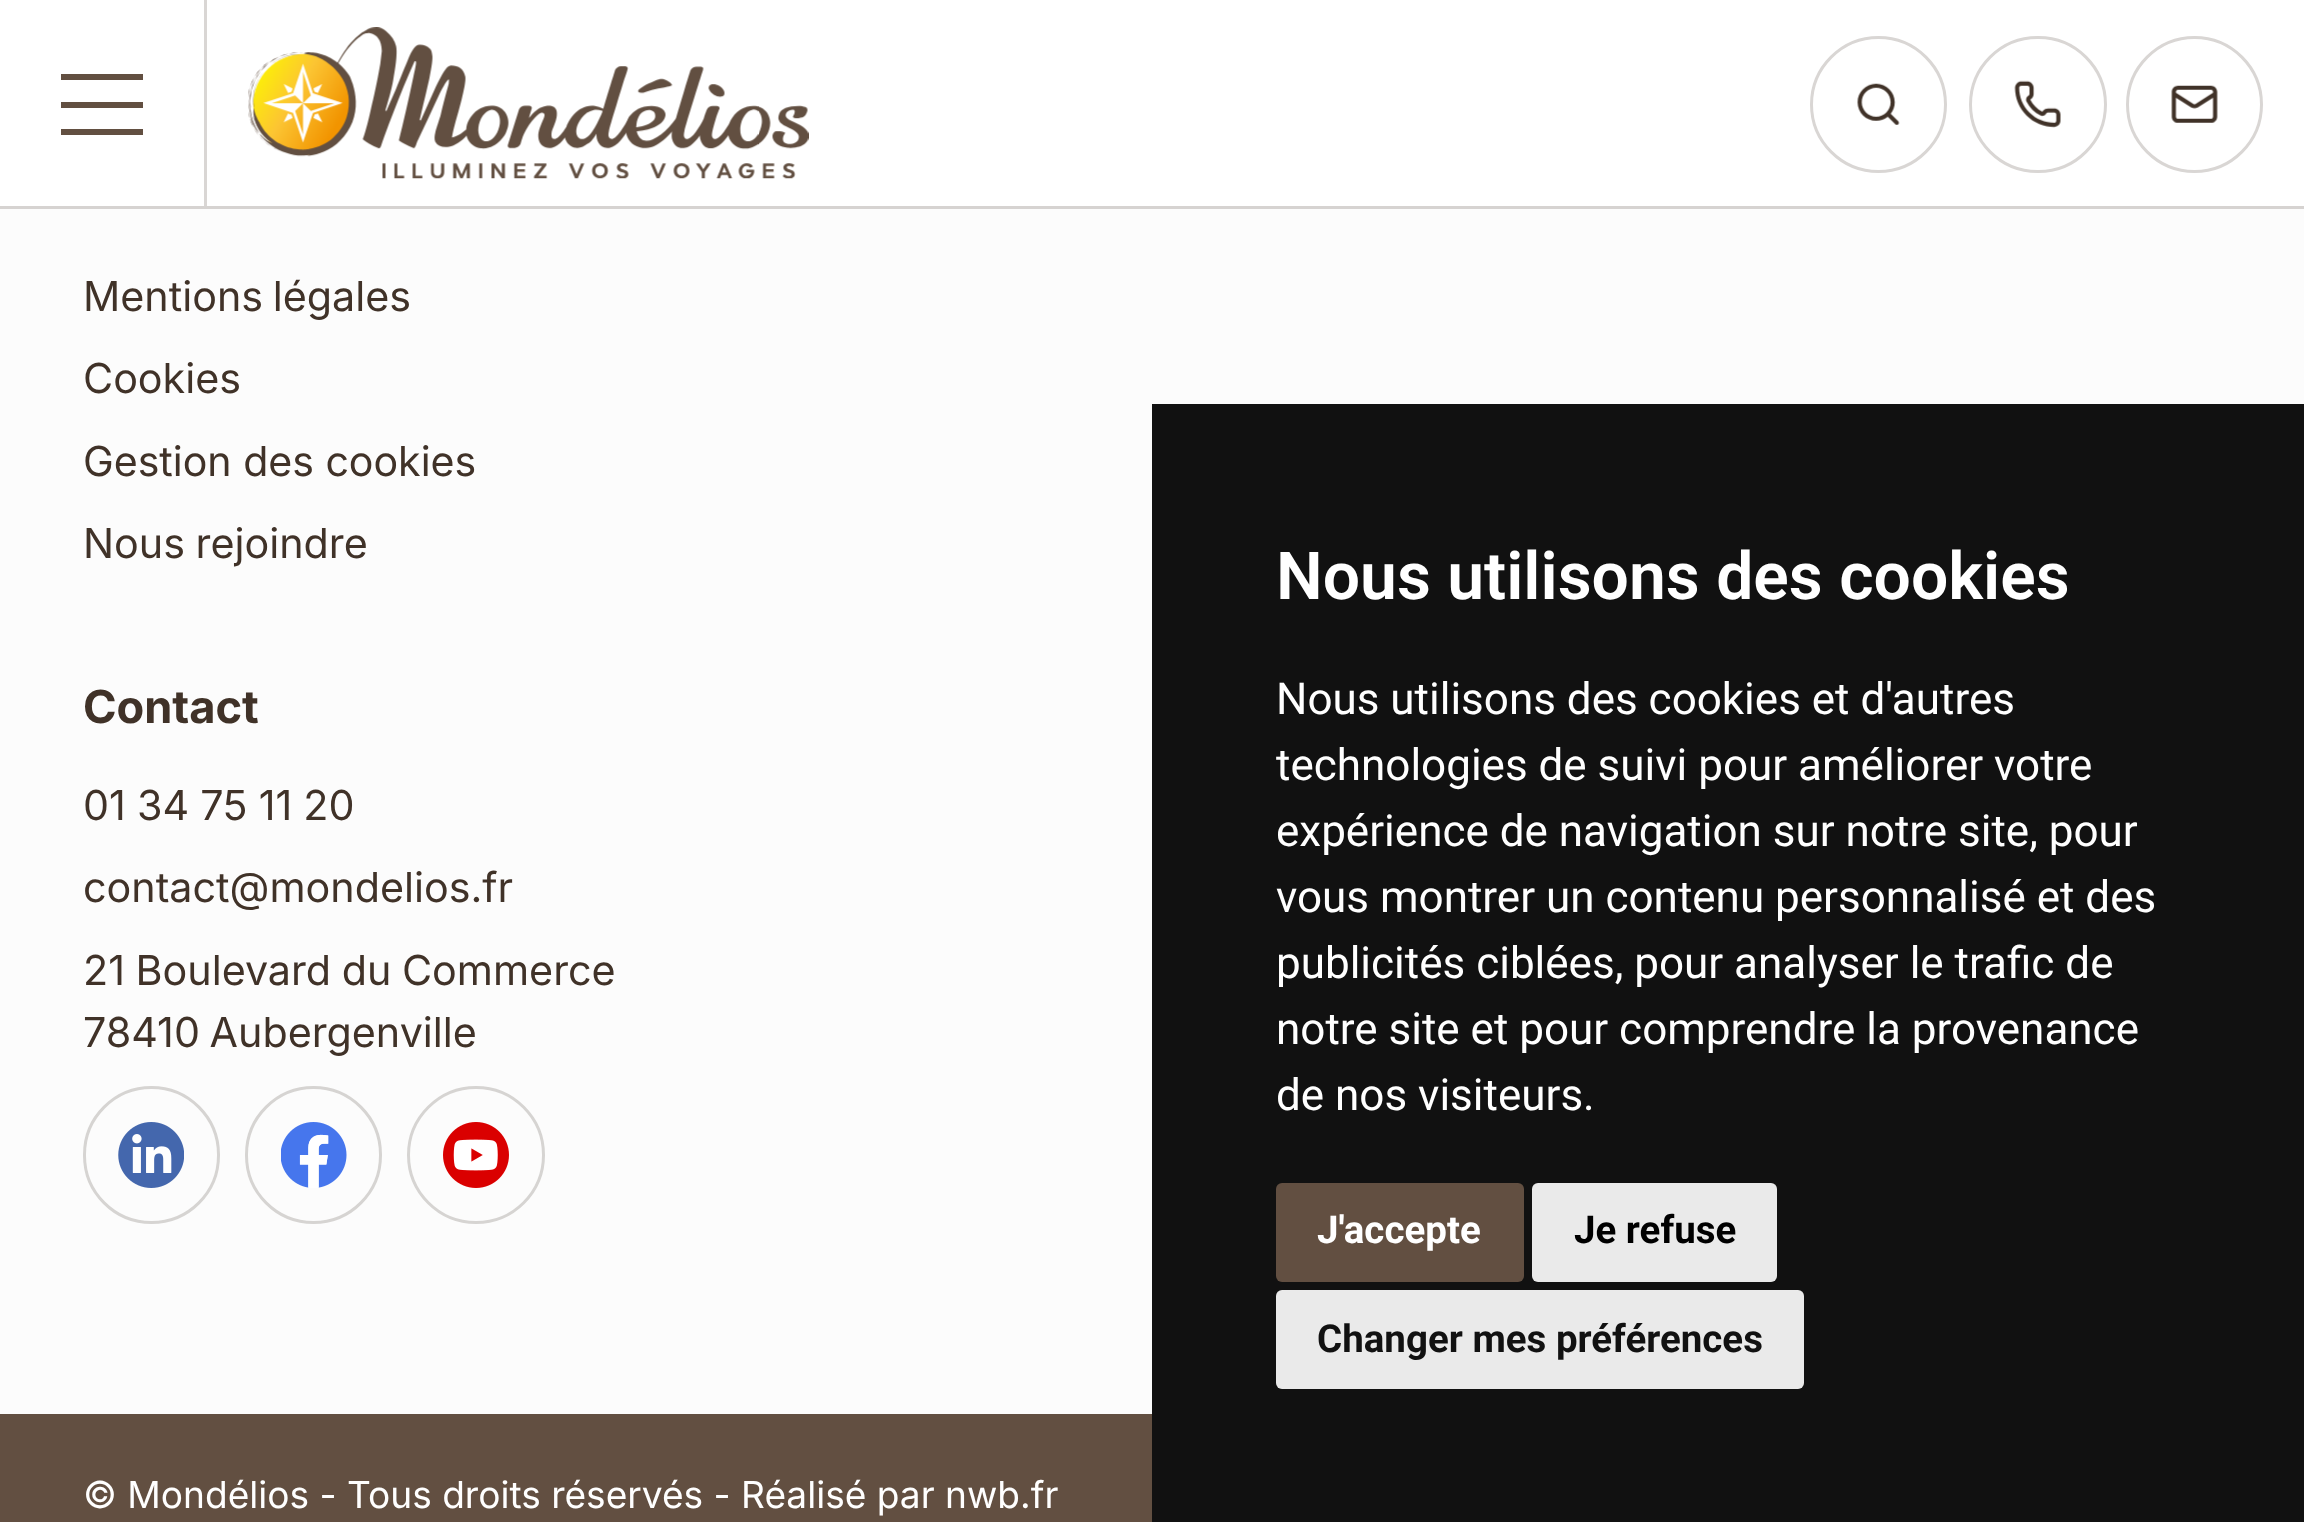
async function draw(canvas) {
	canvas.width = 2304;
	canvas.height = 1522;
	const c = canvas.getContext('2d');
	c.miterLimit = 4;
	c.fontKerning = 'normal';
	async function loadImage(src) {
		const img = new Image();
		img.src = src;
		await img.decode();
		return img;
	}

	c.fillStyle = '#fcfcfc';
	c.fillRect(0, 0, 2304, 1522);
	for (const [x, y, w, h, color] of [
		[0, 206, 2304, 3, '#40322833'],
		[0, 0, 2304, 206, '#fff'],
		[204, 0, 3, 206, '#d9d6d4'],
		[61, 74, 82, 6, '#624f41'],
		[61, 102, 82, 6, '#624f41'],
		[61, 129, 82, 6, '#624f41'],
	]) {
		c.fillStyle = color;
		c.fillRect(x, y, w, h);
	}
	c.drawImage(await loadImage('img1.png'), 248, 27, 561, 152);
	c.beginPath();
	c.arc(1878.5, 104.5, 67, 0, 2 * Math.PI);
	c.strokeStyle = '#d9d6d4';
	c.lineWidth = 3;
	c.stroke();
	c.drawImage(await loadImage('img2.png'), 1857, 83, 43, 42);
	c.beginPath();
	c.roundRect(1970.5, 37.5, 135, 134, 67);
	c.stroke();
	c.drawImage(await loadImage('img3.png'), 2014, 80, 47, 48);
	c.beginPath();
	c.arc(2194.5, 104.5, 67, 0, 2 * Math.PI);
	c.stroke();
	c.drawImage(await loadImage('img4.png'), 2171, 85, 47, 38);
	c.wordSpacing = '-2px';
	c.font = '41.25px Inter';
	c.fillStyle = '#403228';
	c.fillText('Mentions légales', 83, 311);
	c.wordSpacing = '0px';
	c.fillText('Cookies', 83, 393);
	c.font = '41.25px "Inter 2"';
	c.fillText('Gestion des cookies', 83, 476);
	c.wordSpacing = '-1px';
	c.font = '41.25px Inter';
	c.fillText('Nous rejoindre', 83, 558);
	c.wordSpacing = '0px';
	c.font = 'bold 45.5px Inter';
	c.fillText('Contact', 83, 723);
	c.wordSpacing = '-0.5px';
	c.font = '41.25px Inter';
	c.fillText('01 34 75 11 20', 83, 820);
	c.wordSpacing = '0px';
	c.fillText('contact@mondelios.fr', 83, 902);
	c.wordSpacing = '-1px';
	c.fillText('21 Boulevard du Commerce', 83, 985);
	c.wordSpacing = '-2px';
	c.fillText('78410 Aubergenville', 83, 1047);
	c.beginPath();
	c.roundRect(84.5, 1087.5, 134, 135, 67);
	c.strokeStyle = '#d6d4d2';
	c.stroke();
	c.drawImage(await loadImage('img5.png'), 118, 1122, 66, 66);
	c.beginPath();
	c.roundRect(246.5, 1087.5, 134, 135, 67);
	c.stroke();
	c.drawImage(await loadImage('img6.png'), 281, 1122, 66, 66);
	c.beginPath();
	c.arc(476, 1155, 67.5, 0, 2 * Math.PI);
	c.stroke();
	c.drawImage(await loadImage('img7.png'), 443, 1122, 66, 66);
	c.fillStyle = '#624f41';
	c.fillRect(0, 1414, 1152, 108);
	c.wordSpacing = '0px';
	c.font = '37.1px Inter';
	c.fillStyle = '#fff';
	c.fillText('© Mondélios - Tous droits réservés - Réalisé par nwb.fr', 83, 1508);
	c.fillStyle = '#111';
	c.fillRect(1152, 404, 1152, 1118);
	c.font = '600 66px Roboto';
	c.fillStyle = '#fff';
	c.fillText('Nous utilisons des cookies', 1276, 599);
	c.font = '44px Roboto';
	for (const [text, x, y] of [
		['Nous utilisons des cookies et d\'autres', 1276, 714],
		['technologies de suivi pour améliorer votre', 1276, 780],
		['expérience de navigation sur notre site, pour', 1276, 846],
		['vous montrer un contenu personnalisé et des', 1276, 912],
		['publicités ciblées, pour analyser le trafic de', 1276, 978],
		['notre site et pour comprendre la provenance', 1276, 1044],
		['de nos visiteurs.', 1276, 1110],
	]) {
		c.fillText(text, x, y);
	}
	c.fillStyle = '#624f41';
	c.beginPath();
	c.roundRect(1276, 1183, 248, 99, 6);
	c.fill();
	c.font = 'bold 38.5px Roboto';
	c.fillStyle = '#fff';
	c.fillText('J\'accepte', 1317, 1243);
	c.fillStyle = '#eaeaea';
	c.beginPath();
	c.roundRect(1532, 1183, 245, 99, 6);
	c.fill();
	c.fillStyle = '#000';
	c.fillText('Je refuse', 1574, 1243);
	c.fillStyle = '#eaeaea';
	c.beginPath();
	c.roundRect(1276, 1290, 528, 99, 6);
	c.fill();
	c.fillStyle = '#111';
	c.fillText('Changer mes préférences', 1317, 1352);
}

draw(document.querySelector('canvas'));
